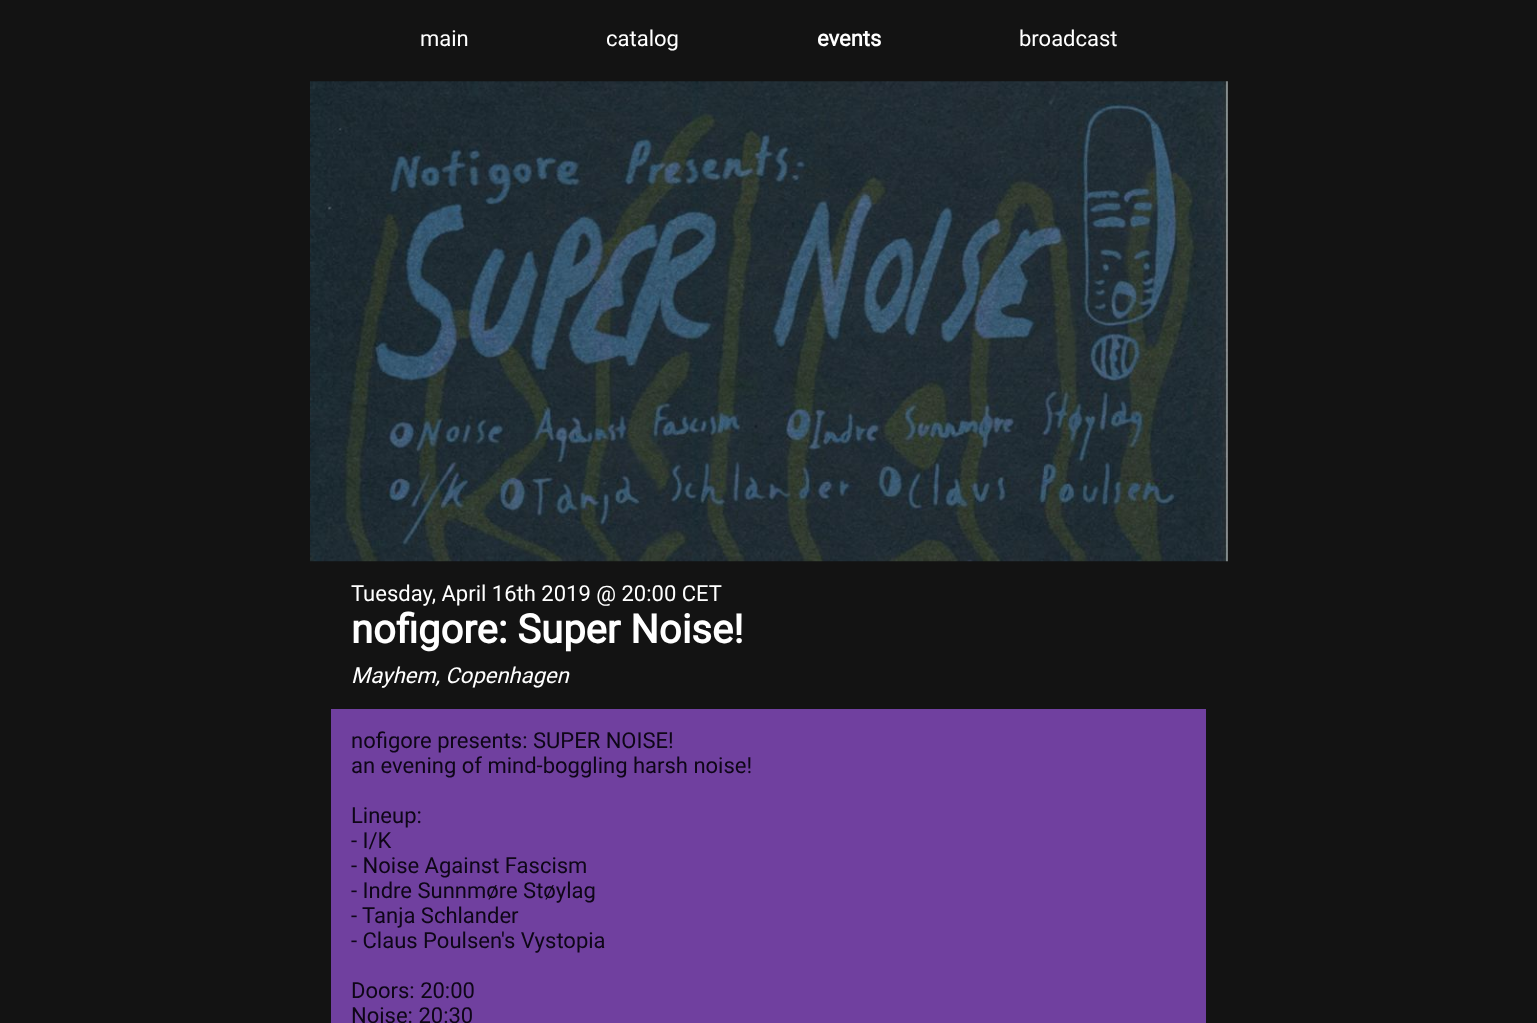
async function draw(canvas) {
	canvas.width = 1537;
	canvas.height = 1023;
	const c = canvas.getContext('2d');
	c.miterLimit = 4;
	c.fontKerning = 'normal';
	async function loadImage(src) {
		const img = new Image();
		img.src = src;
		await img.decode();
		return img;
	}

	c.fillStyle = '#131313';
	c.fillRect(0, 0, 1537, 1023);
	c.font = '22px Roboto';
	c.fillStyle = '#fff';
	c.fillText('main', 420, 46);
	c.fillText('catalog', 606, 46);
	c.font = 'bold 22px Roboto';
	c.fillText('events', 817, 46);
	c.font = '22px Roboto';
	c.fillText('broadcast', 1019, 46);
	c.drawImage(await loadImage('img1.png'), 310, 81, 918, 481);
	c.fillText('Tuesday, April 16th 2019 @ 20:00 CET', 351, 601);
	c.font = 'bold 40px Roboto';
	c.fillText('nofigore: Super Noise!', 351, 643);
	c.font = 'italic 22px Roboto';
	c.fillText('Mayhem, Copenhagen', 351, 683);
	c.fillStyle = '#70409f';
	c.fillRect(331, 709, 875, 314);
	c.font = '22px Roboto';
	c.fillStyle = '#0e0617';
	for (const [text, x, y] of [
		['nofigore presents: SUPER NOISE!', 351, 748],
		['an evening of mind-boggling harsh noise!', 351, 773],
		['Lineup:', 351, 823],
		['- I/K', 351, 848],
		['- Noise Against Fascism', 351, 873],
		['- Indre Sunnmøre Støylag', 351, 898],
		['- Tanja Schlander', 351, 923],
		['- Claus Poulsen\'s Vystopia', 351, 948],
		['Doors: 20:00', 351, 998],
		['Noise: 20:30', 351, 1023],
	]) {
		c.fillText(text, x, y);
	}
}

draw(document.querySelector('canvas'));
